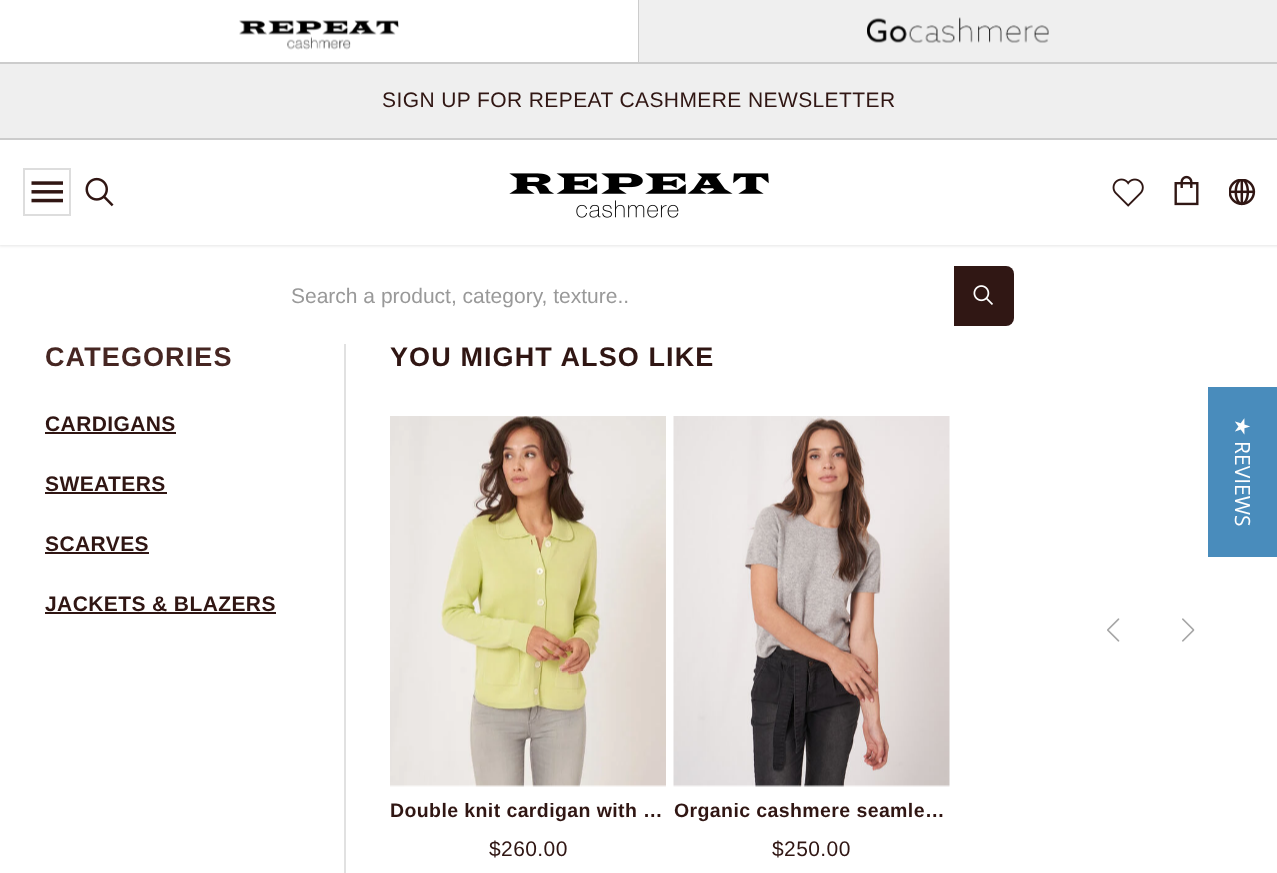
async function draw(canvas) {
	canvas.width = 1277;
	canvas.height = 873;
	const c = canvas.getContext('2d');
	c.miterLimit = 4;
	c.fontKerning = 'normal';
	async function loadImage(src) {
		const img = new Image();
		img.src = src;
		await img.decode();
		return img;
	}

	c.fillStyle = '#fff';
	c.fillRect(0, 0, 1277, 873);
	c.fillStyle = '#0000001a';
	c.filter = 'blur(1.5px)';
	c.beginPath();
	c.rect(-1, 138, 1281, 108);
	c.fill();
	c.filter = 'none';
	for (const [x, y, w, h, color] of [
		[0, 64, 1277, 74, '#efefef'],
		[0, 138, 1277, 2, '#ccc'],
		[0, 62, 1277, 2, '#ccc'],
		[638, 0, 1, 62, '#ccc'],
	]) {
		c.fillStyle = color;
		c.fillRect(x, y, w, h);
	}
	c.drawImage(await loadImage('img1.png'), 239, 20, 160, 30);
	c.fillStyle = '#efefef';
	c.fillRect(639, 0, 638, 62);
	c.drawImage(await loadImage('img2.png'), 867, 17, 182, 26);
	c.letterSpacing = '0.4px';
	c.font = '21px Liberation Sans';
	c.fillStyle = '#301613';
	c.fillText('SIGN UP FOR REPEAT CASHMERE NEWSLETTER', 382, 107);
	c.fillStyle = '#fff';
	c.fillRect(0, 140, 1277, 105);
	c.strokeStyle = '#ddd';
	c.lineWidth = 2;
	c.strokeRect(24, 169, 46, 46);
	c.drawImage(await loadImage('img3.png'), 31, 181, 32, 22);
	c.drawImage(await loadImage('img4.png'), 85, 177, 29, 30);
	c.drawImage(await loadImage('img5.png'), 1112, 178, 32, 29);
	c.drawImage(await loadImage('img6.png'), 1174, 175, 25, 31);
	c.drawImage(await loadImage('img7.png'), 1229, 179, 27, 27);
	c.drawImage(await loadImage('img8.png'), 509, 173, 260, 45);
	c.letterSpacing = '0px';
	c.fillStyle = '#999';
	c.fillText('Search a product, category, texture..', 291, 303);
	c.fillStyle = '#301714';
	c.beginPath();
	c.roundRect(954, 266, 60, 60, [0, 8, 8, 0]);
	c.fill();
	c.drawImage(await loadImage('img9.png'), 973, 285, 20, 20);
	c.letterSpacing = '1.1px';
	c.font = 'bold 27px Liberation Sans';
	c.fillStyle = '#462622';
	c.fillText('CATEGORIES', 45, 366);
	c.fillStyle = '#e1e1e1';
	c.fillRect(344, 344, 2, 529);
	c.letterSpacing = '0.4px';
	c.font = 'bold 21px Liberation Sans';
	c.fillStyle = '#301613';
	c.fillText('CARDIGANS', 45, 431);
	c.fillRect(45, 432, 131, 2);
	c.fillText('SWEATERS', 45, 491);
	c.fillRect(45, 492, 122, 2);
	c.fillText('SCARVES', 45, 551);
	c.fillRect(45, 552, 104, 2);
	c.fillText('JACKETS & BLAZERS', 45, 611);
	c.fillRect(45, 612, 231, 2);
	c.letterSpacing = '1.1px';
	c.font = 'bold 27px Liberation Sans';
	c.fillText('YOU MIGHT ALSO LIKE', 390, 366);
	c.drawImage(await loadImage('img10.png'), 1107, 618, 13, 24);
	c.drawImage(await loadImage('img11.png'), 1182, 618, 13, 24);
	c.drawImage(await loadImage('img12.png'), 390, 416, 276, 371);
	c.letterSpacing = '0.4px';
	c.font = 'bold 19.5px Liberation Sans';
	c.fillText('Double knit cardigan with …', 390, 817);
	c.font = '21px Liberation Sans';
	c.fillText('$260.00', 489, 856);
	c.drawImage(await loadImage('img13.png'), 673, 416, 277, 371);
	c.font = 'bold 19.5px Liberation Sans';
	c.fillText('Organic cashmere seamle…', 674, 817);
	c.font = '21px Liberation Sans';
	c.fillText('$250.00', 772, 856);
	c.fillStyle = '#498cbc';
	c.fillRect(1208, 387, 69, 170);
	c.letterSpacing = '0px';
	c.font = '21px DejaVu Sans';
	c.fillStyle = '#fefefe';
	c.save();
	c.translate(1235, 417);
	c.rotate(90 * Math.PI / 180);
	c.fillText('★', 0, 0);
	c.restore();
	c.font = '21px Open Sans';
	c.save();
	c.translate(1235, 441);
	c.rotate(90 * Math.PI / 180);
	c.fillText('REVIEWS', 0, 0);
	c.restore();
}

draw(document.querySelector('canvas'));
